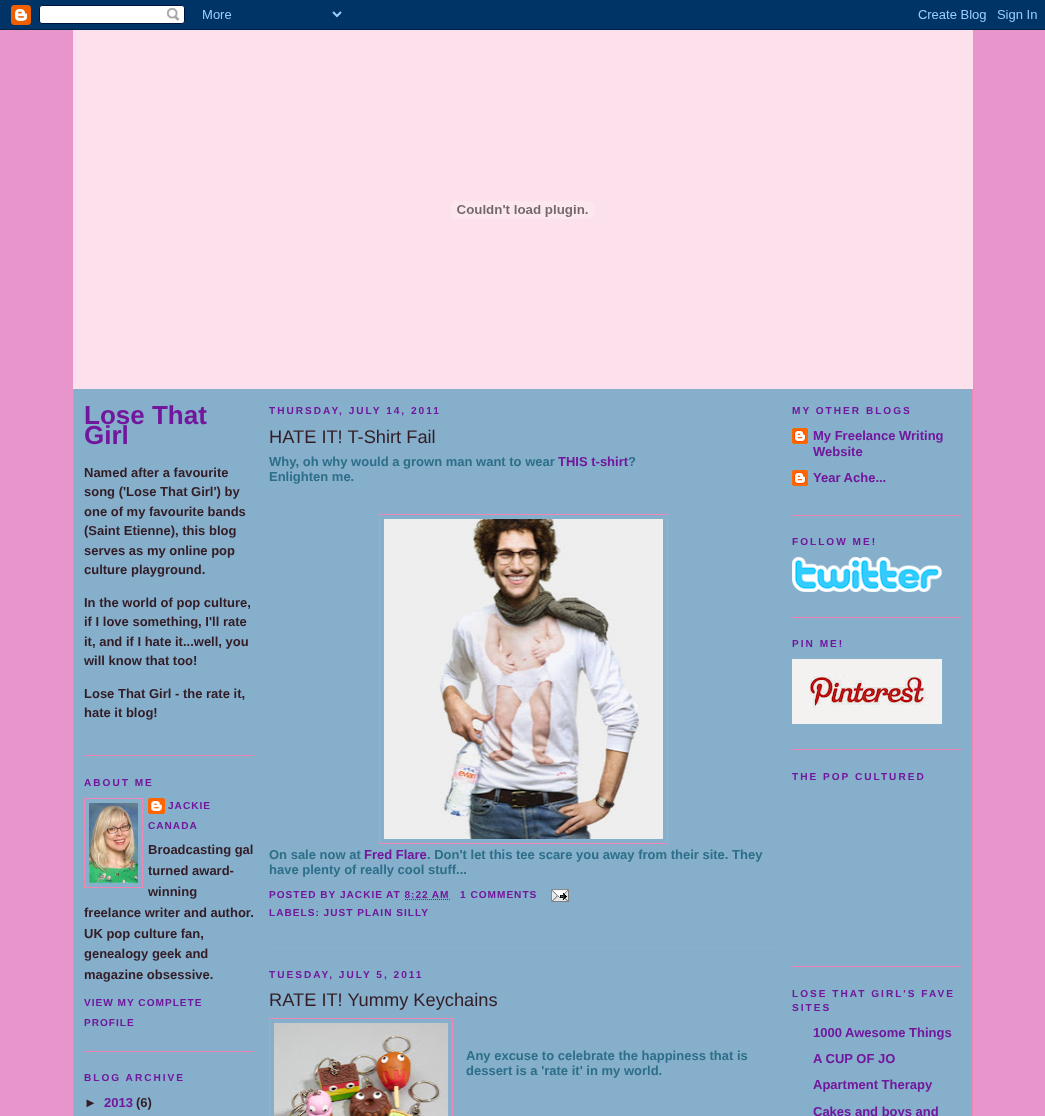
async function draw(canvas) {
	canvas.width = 1045;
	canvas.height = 1116;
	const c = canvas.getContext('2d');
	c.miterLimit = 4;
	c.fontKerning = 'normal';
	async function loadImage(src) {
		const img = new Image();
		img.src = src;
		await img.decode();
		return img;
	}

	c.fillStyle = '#e895cc';
	c.fillRect(0, 0, 1045, 1116);
	c.drawImage(await loadImage('img1.png'), 0, 0, 1045, 30);
	c.fillStyle = '#fce1ec';
	c.fillRect(73, 30, 900, 359);
	c.drawImage(await loadImage('img2.png'), 451, 201, 143, 18);
	for (const [x, y, w, h, color] of [
		[74, 389, 898, 727, '#85afca'],
		[972, 389, 1, 727, '#f286b5'],
		[73, 389, 1, 727, '#f286b5'],
	]) {
		c.fillStyle = color;
		c.fillRect(x, y, w, h);
	}
	c.beginPath();
	c.moveTo(84, 755.5);
	c.lineTo(254, 755.5);
	c.strokeStyle = '#f286b5';
	c.setLineDash([1, 1]);
	c.stroke();
	c.font = 'bold 26px Liberation Sans';
	c.fillStyle = '#72179d';
	c.fillText('Lose That', 84, 424);
	c.fillText('Girl', 84, 444);
	c.font = 'bold 13px Liberation Sans';
	c.fillStyle = '#331c26';
	for (const [text, x, y] of [
		['Named after a favourite', 84, 477],
		['song (\'Lose That Girl\') by', 84, 496],
		['one of my favourite bands', 84, 516],
		['(Saint Etienne), this blog', 84, 535],
		['serves as my online pop', 84, 555],
		['culture playground.', 84, 574],
		['In the world of pop culture,', 84, 607],
		['if I love something, I\'ll rate', 84, 626],
		['it, and if I hate it...well, you', 84, 646],
		['will know that too!', 84, 665],
		['Lose That Girl - the rate it,', 84, 698],
		['hate it blog!', 84, 717],
	]) {
		c.fillText(text, x, y);
	}
	c.beginPath();
	c.moveTo(84, 1051.5);
	c.lineTo(254, 1051.5);
	c.stroke();
	c.letterSpacing = '2px';
	c.font = 'bold 10.1px Liberation Sans';
	c.fillStyle = '#72179d';
	c.fillText('ABOUT ME', 84, 786);
	c.setLineDash([]);
	c.strokeRect(84.5, 798.5, 58, 89);
	c.drawImage(await loadImage('img3.png'), 89, 803, 49, 80);
	c.drawImage(await loadImage('img4.png'), 148, 798, 17, 16);
	c.letterSpacing = '1px';
	c.fillText('JACKIE', 168, 809);
	c.fillText('CANADA', 148, 829);
	c.letterSpacing = '0px';
	c.font = 'bold 13px Liberation Sans';
	c.fillStyle = '#331c26';
	for (const [text, x, y] of [
		['Broadcasting gal', 148, 854],
		['turned award-', 148, 875],
		['winning', 148, 896],
		['freelance writer and author.', 84, 917],
		['UK pop culture fan,', 84, 938],
		['genealogy geek and', 84, 958],
		['magazine obsessive.', 84, 979],
	]) {
		c.fillText(text, x, y);
	}
	c.letterSpacing = '1px';
	c.font = 'bold 10.1px Liberation Sans';
	c.fillStyle = '#72179d';
	c.fillText('VIEW MY COMPLETE', 84, 1006);
	c.fillText('PROFILE', 84, 1026);
	c.letterSpacing = '2px';
	c.fillText('BLOG ARCHIVE', 84, 1081);
	c.letterSpacing = '0px';
	c.font = 'bold 13px Liberation Sans';
	c.fillStyle = '#331c26';
	c.fillText('►', 84, 1107);
	c.fillStyle = '#72179d';
	c.fillText('2013', 104, 1107);
	c.fillStyle = '#331c26';
	c.fillText('(6)', 136, 1107);
	c.letterSpacing = '2px';
	c.font = 'bold 10.1px Liberation Sans';
	c.fillStyle = '#72179d';
	c.fillText('THURSDAY, JULY 14, 2011', 269, 414);
	c.beginPath();
	c.moveTo(269, 947.5);
	c.lineTo(779, 947.5);
	c.setLineDash([1, 1]);
	c.stroke();
	c.letterSpacing = '0px';
	c.font = '18.25px Liberation Sans';
	c.fillStyle = '#331c26';
	c.fillText('HATE IT! T-Shirt Fail', 269, 443);
	c.font = 'bold 13px Liberation Sans';
	c.fillStyle = '#2d6e89';
	c.fillText('Why, oh why would a grown man want to wear', 269, 466);
	c.fillStyle = '#72179d';
	c.fillText('THIS t-shirt', 558, 466);
	c.fillStyle = '#2d6e89';
	c.fillText('?', 628, 466);
	c.fillText('Enlighten me.', 269, 481);
	c.setLineDash([]);
	c.strokeRect(379.5, 514.5, 288, 329);
	c.drawImage(await loadImage('img5.png'), 384, 519, 279, 320);
	c.fillText('On sale now at', 269, 859);
	c.fillStyle = '#72179d';
	c.fillText('Fred Flare', 364, 859);
	c.fillStyle = '#2d6e89';
	c.fillText('. Don\'t let this tee scare you away from their site. They', 427, 859);
	c.fillText('have plenty of really cool stuff...', 269, 874);
	c.letterSpacing = '1px';
	c.font = 'bold 10.1px Liberation Sans';
	c.fillStyle = '#72179d';
	c.fillText('POSTED BY JACKIE', 269, 898);
	c.fillText('AT 8:22 AM', 386, 898);
	c.beginPath();
	c.moveTo(405, 899.5);
	c.lineTo(450, 899.5);
	c.strokeStyle = '#72179d';
	c.setLineDash([1, 1]);
	c.stroke();
	c.fillText('1 COMMENTS', 460, 898);
	c.drawImage(await loadImage('img6.png'), 551, 889, 18, 13);
	c.fillText('LABELS: JUST PLAIN SILLY', 269, 916);
	c.letterSpacing = '2px';
	c.fillText('TUESDAY, JULY 5, 2011', 269, 978);
	c.letterSpacing = '0px';
	c.font = '18.25px Liberation Sans';
	c.fillStyle = '#331c26';
	c.fillText('RATE IT! Yummy Keychains', 269, 1006);
	c.strokeStyle = '#f286b5';
	c.setLineDash([]);
	c.strokeRect(269.5, 1018.5, 183, 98);
	c.drawImage(await loadImage('img7.png'), 274, 1023, 174, 93);
	c.font = 'bold 13px Liberation Sans';
	c.fillStyle = '#2d6e89';
	c.fillText('Any excuse to celebrate the happiness that is', 466, 1060);
	c.fillText('dessert is a \'rate it\' in my world.', 466, 1075);
	c.beginPath();
	c.moveTo(792, 515.5);
	c.lineTo(962, 515.5);
	c.setLineDash([1, 1]);
	c.stroke();
	c.letterSpacing = '2px';
	c.font = 'bold 10.1px Liberation Sans';
	c.fillStyle = '#72179d';
	c.fillText('MY OTHER BLOGS', 792, 414);
	c.drawImage(await loadImage('img8.png'), 792, 428, 16, 16);
	c.letterSpacing = '0px';
	c.font = 'bold 13px Liberation Sans';
	c.fillText('My Freelance Writing', 813, 440);
	c.fillText('Website', 813, 456);
	c.drawImage(await loadImage('img8.png'), 792, 470, 16, 16);
	c.fillText('Year Ache...', 813, 482);
	c.beginPath();
	c.moveTo(792, 617.5);
	c.lineTo(962, 617.5);
	c.stroke();
	c.letterSpacing = '2px';
	c.font = 'bold 10.1px Liberation Sans';
	c.fillText('FOLLOW ME!', 792, 545);
	c.drawImage(await loadImage('img9.png'), 792, 557, 150, 35);
	c.beginPath();
	c.moveTo(792, 749.5);
	c.lineTo(962, 749.5);
	c.stroke();
	c.fillText('PIN ME!', 792, 647);
	c.drawImage(await loadImage('img10.png'), 792, 659, 150, 65);
	c.beginPath();
	c.moveTo(792, 966.5);
	c.lineTo(962, 966.5);
	c.stroke();
	for (const [text, x, y] of [
		['THE POP CULTURED', 792, 780],
		['LOSE THAT GIRL\'S FAVE', 792, 997],
		['SITES', 792, 1011],
	]) {
		c.fillText(text, x, y);
	}
	c.letterSpacing = '0px';
	c.font = 'bold 13px Liberation Sans';
	for (const [text, x, y] of [
		['1000 Awesome Things', 813, 1037],
		['A CUP OF JO', 813, 1063],
		['Apartment Therapy', 813, 1089],
		['Cakes and boys and', 813, 1116],
	]) {
		c.fillText(text, x, y);
	}
}

draw(document.querySelector('canvas'));
